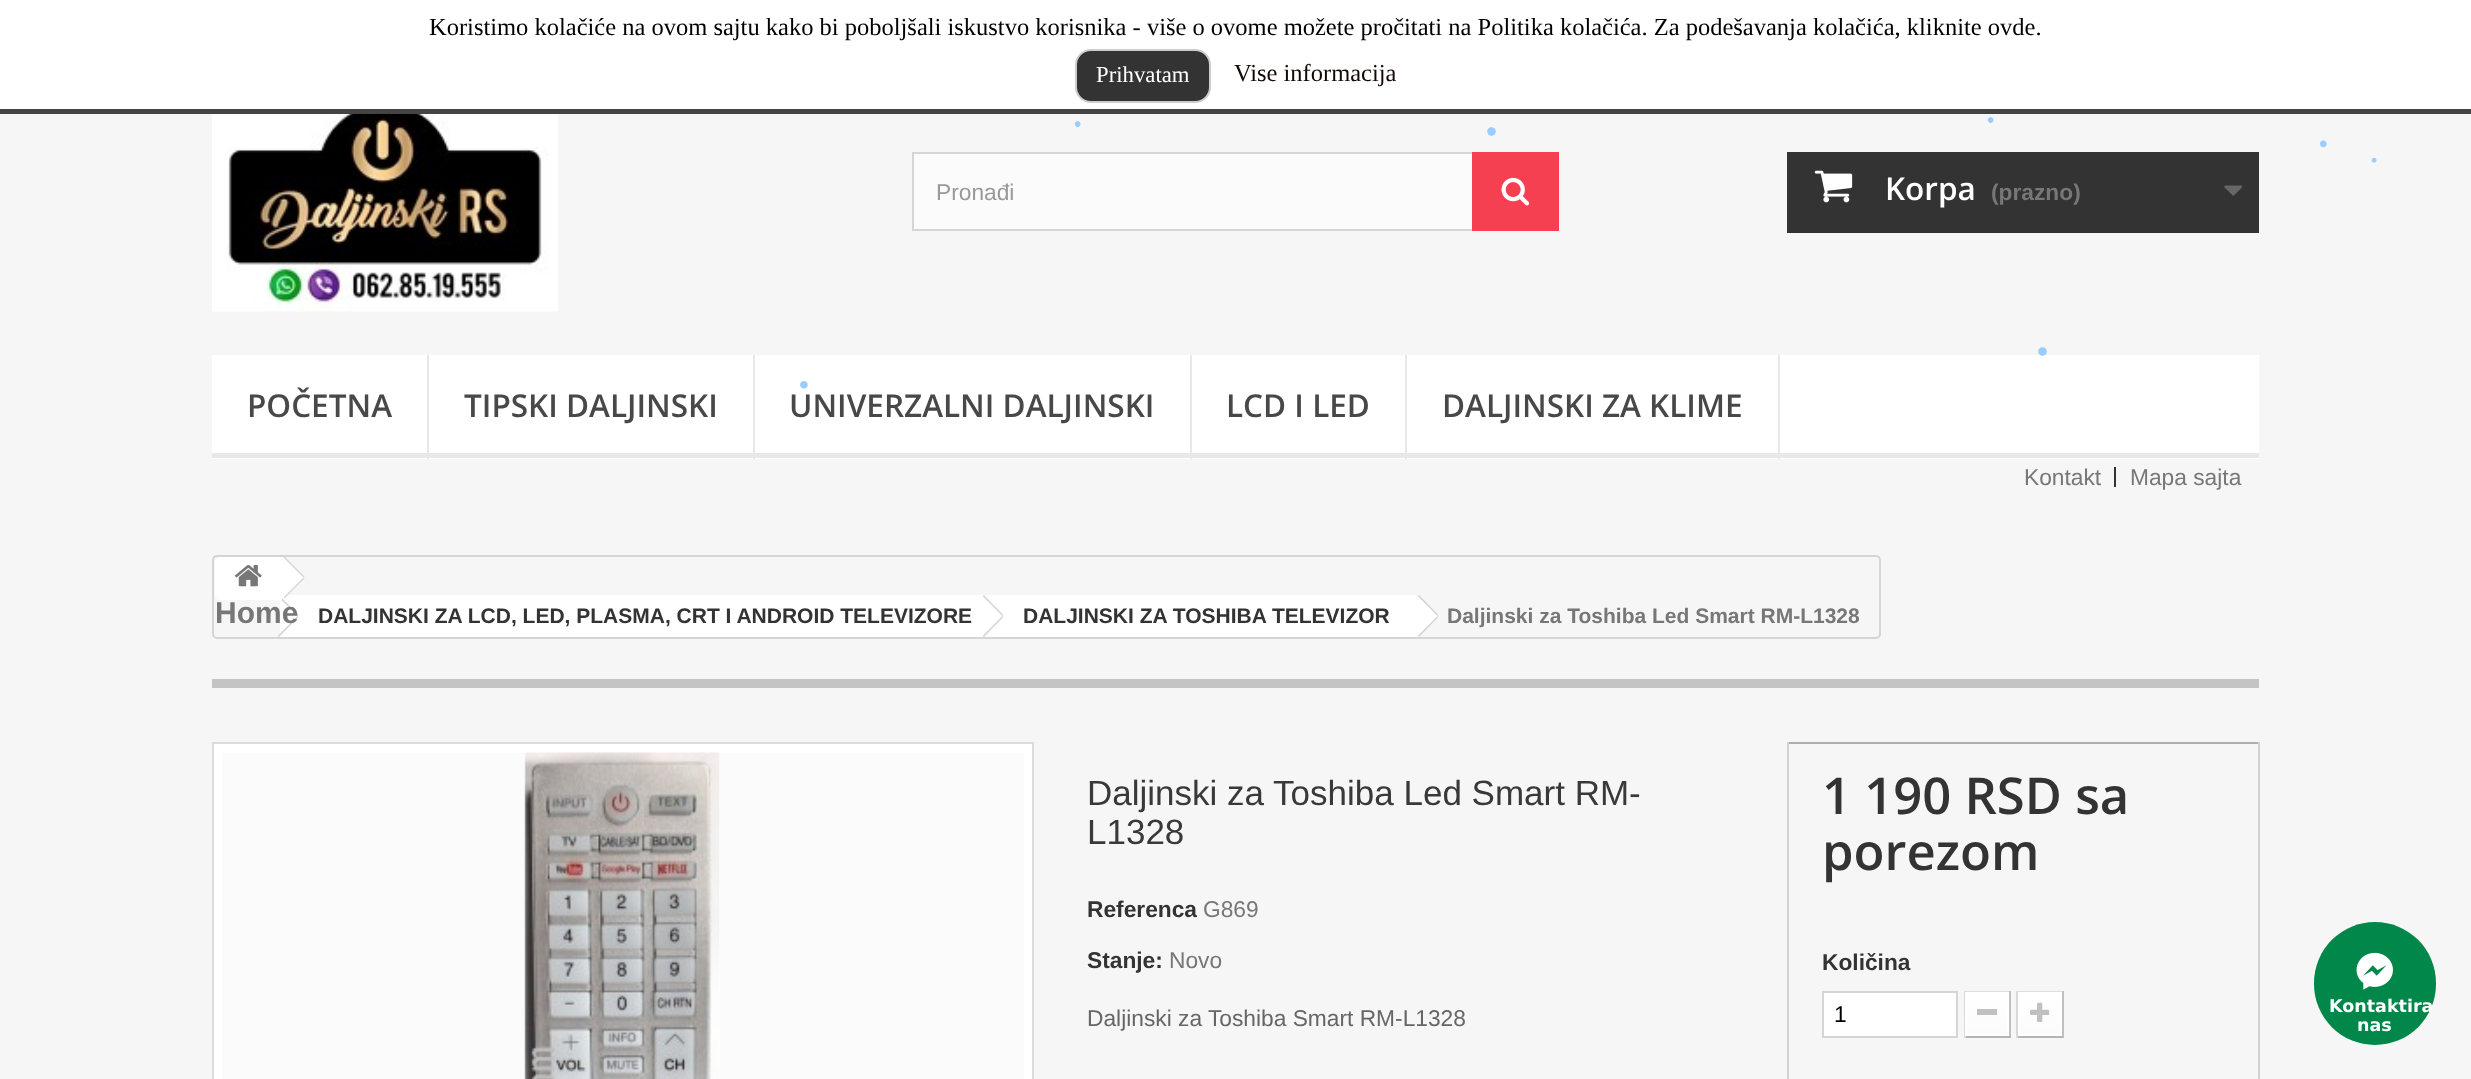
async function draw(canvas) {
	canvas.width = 2471;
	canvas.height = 1079;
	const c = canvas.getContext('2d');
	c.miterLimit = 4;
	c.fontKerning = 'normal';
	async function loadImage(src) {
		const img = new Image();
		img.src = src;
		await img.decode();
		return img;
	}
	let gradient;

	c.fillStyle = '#f6f6f6';
	c.fillRect(0, 0, 2471, 1079);
	c.fillStyle = '#fff';
	c.fillRect(0, 0, 2471, 109);
	c.fillStyle = '#444';
	c.fillRect(0, 109, 2471, 5);
	c.font = '24.5px Liberation Serif';
	c.fillStyle = '#000';
	c.fillText('Koristimo kolačiće na ovom sajtu kako bi poboljšali iskustvo korisnika - više o ovome možete pročitati na Politika kolačića. Za podešavanja kolačića, kliknite ovde.', 429, 35);
	c.fillStyle = '#333';
	c.beginPath();
	c.roundRect(1076, 50, 134, 52, 15);
	c.fill();
	c.strokeStyle = '#ccc';
	c.lineWidth = 2;
	c.stroke();
	c.font = '22.75px Liberation Serif';
	c.fillStyle = '#fff';
	c.fillText('Prihvatam', 1096, 82);
	c.font = '24.5px Liberation Serif';
	c.fillStyle = '#140805';
	c.fillText('Vise informacija', 1234, 81);
	c.font = '21px Liberation Sans';
	c.fillStyle = '#9cf';
	c.fillText('•', 1987, 127);
	c.fillText('•', 1074, 131);
	c.font = '31.5px Liberation Sans';
	c.fillText('•', 1486, 142);
	c.font = '24.5px Liberation Sans';
	c.fillText('•', 2319, 152);
	c.font = '17.5px Liberation Sans';
	c.fillText('•', 2371, 166);
	c.drawImage(await loadImage('img1.png'), 212, 114, 346, 198);
	c.fillStyle = '#fbfbfb';
	c.fillRect(914, 154, 558, 75);
	c.strokeStyle = '#d6d4d4';
	c.strokeRect(913, 153, 645, 77);
	c.font = '22.75px Liberation Sans';
	c.fillStyle = '#999';
	c.fillText('Pronađi', 936, 200);
	c.fillStyle = '#f44051';
	c.fillRect(1472, 152, 87, 79);
	c.drawImage(await loadImage('img2.png'), 1501, 177, 29, 29);
	c.fillStyle = '#333';
	c.fillRect(1787, 152, 472, 81);
	c.drawImage(await loadImage('img3.png'), 1814, 170, 39, 33);
	c.font = '600 31.5px Open Sans';
	c.fillStyle = '#fff';
	c.fillText('Korpa', 1885, 200);
	c.font = 'bold 22.75px Liberation Sans';
	c.fillStyle = '#777';
	c.fillText('(prazno)', 1991, 200);
	c.drawImage(await loadImage('img4.png'), 2224, 185, 19, 11);
	for (const [x, y, w, h, color] of [
		[212, 355, 2047, 104, '#fff'],
		[212, 453, 2047, 5, '#e8e8e8'],
		[427, 355, 2, 104, '#e8e8e8'],
	]) {
		c.fillStyle = color;
		c.fillRect(x, y, w, h);
	}
	c.font = '600 31.5px Open Sans';
	c.fillStyle = '#484848';
	c.fillText('POČETNA', 247, 417);
	c.fillStyle = '#e8e8e8';
	c.fillRect(753, 355, 2, 104);
	c.fillStyle = '#484848';
	c.fillText('TIPSKI DALJINSKI', 464, 417);
	c.fillStyle = '#e8e8e8';
	c.fillRect(1190, 355, 2, 104);
	c.fillStyle = '#484848';
	c.fillText('UNIVERZALNI DALJINSKI', 789, 417);
	c.fillStyle = '#e8e8e8';
	c.fillRect(1405, 355, 2, 104);
	c.fillStyle = '#484848';
	c.fillText('LCD I LED', 1226, 417);
	c.fillStyle = '#e8e8e8';
	c.fillRect(1778, 355, 2, 104);
	c.fillStyle = '#484848';
	c.fillText('DALJINSKI ZA KLIME', 1442, 417);
	c.font = '22.75px Liberation Sans';
	c.fillStyle = '#777';
	c.fillText('Kontakt', 2024, 485);
	c.fillStyle = '#333';
	c.fillRect(2114, 467, 2, 20);
	c.fillStyle = '#777';
	c.fillText('Mapa sajta', 2130, 485);
	c.beginPath();
	c.roundRect(213, 556, 1667, 82, 4);
	c.stroke();
	c.fillStyle = '#fff';
	c.fillRect(280, 595, 704, 42);
	c.fillStyle = '#d6d4d4';
	c.beginPath();
	c.moveTo(279, 595);
	c.lineTo(298.5, 615);
	c.lineTo(297.5, 616);
	c.lineTo(277.5, 596);
	c.closePath();
	c.moveTo(297.5, 616);
	c.lineTo(298.5, 617);
	c.lineTo(279, 637);
	c.lineTo(277.5, 636);
	c.closePath();
	c.fill();
	c.fillStyle = '#fff';
	c.beginPath();
	c.roundRect(215, 557, 67, 43, [5, 0, 0, 5]);
	c.fill();
	c.drawImage(await loadImage('img5.png'), 235, 565, 27, 22);
	c.beginPath();
	c.moveTo(286, 558);
	c.lineTo(285, 557);
	c.lineTo(282, 557);
	c.lineTo(263, 575);
	c.bezierCurveTo(260, 578, 265, 581, 267, 583);
	c.lineTo(281, 597);
	c.bezierCurveTo(284, 600, 286, 597, 289, 594);
	c.lineTo(300, 583);
	c.bezierCurveTo(302, 581, 307, 577, 303, 575);
	c.closePath();
	c.fill();
	c.fillStyle = '#d6d4d4';
	c.beginPath();
	c.moveTo(284.5, 556.5);
	c.lineTo(304.5, 576.5);
	c.lineTo(303.5, 577.5);
	c.lineTo(283.5, 557.5);
	c.closePath();
	c.fill();
	c.beginPath();
	c.moveTo(303.5, 577.5);
	c.lineTo(304.5, 578.5);
	c.lineTo(284.5, 598.5);
	c.lineTo(283.5, 597.5);
	c.closePath();
	c.fill();
	c.font = 'bold 30px Liberation Sans';
	c.fillStyle = '#777';
	c.fillText('Home', 215, 623);
	c.font = 'bold 21px Liberation Sans';
	c.fillStyle = '#333';
	c.fillText('DALJINSKI ZA LCD, LED, PLASMA, CRT I ANDROID TELEVIZORE', 318, 623);
	c.fillStyle = '#fff';
	c.beginPath();
	c.moveTo(1003, 596);
	c.lineTo(1020, 614);
	c.bezierCurveTo(1021, 615, 1021, 617, 1020, 618);
	c.lineTo(1003, 636);
	c.bezierCurveTo(1001, 637, 999, 637, 998, 636);
	c.lineTo(980, 618);
	c.bezierCurveTo(979, 617, 979, 615, 980, 614);
	c.lineTo(998, 596);
	c.bezierCurveTo(999, 595, 1001, 595, 1003, 596);
	c.closePath();
	c.fill();
	c.fillRect(984, 595, 432, 42);
	c.fillStyle = '#d6d4d4';
	c.beginPath();
	c.moveTo(984, 595);
	c.lineTo(1003.5, 615);
	c.lineTo(1002.5, 616);
	c.lineTo(982.5, 596);
	c.closePath();
	c.moveTo(1002.5, 616);
	c.lineTo(1003.5, 617);
	c.lineTo(984, 637);
	c.lineTo(982.5, 636);
	c.closePath();
	c.fill();
	c.fillStyle = '#333';
	c.fillText('DALJINSKI ZA TOSHIBA TELEVIZOR', 1023, 623);
	c.fillStyle = '#fff';
	c.beginPath();
	c.moveTo(1420, 596);
	c.lineTo(1437, 614);
	c.bezierCurveTo(1439, 615, 1439, 617, 1437, 618);
	c.lineTo(1420, 636);
	c.bezierCurveTo(1419, 637, 1416, 637, 1415, 636);
	c.lineTo(1398, 618);
	c.bezierCurveTo(1396, 617, 1396, 615, 1398, 614);
	c.lineTo(1415, 596);
	c.bezierCurveTo(1416, 595, 1419, 595, 1420, 596);
	c.closePath();
	c.fill();
	c.fillStyle = '#d6d4d4';
	c.beginPath();
	c.moveTo(1419, 595);
	c.lineTo(1438.5, 615);
	c.lineTo(1437.5, 616);
	c.lineTo(1417.5, 596);
	c.closePath();
	c.moveTo(1437.5, 616);
	c.lineTo(1438.5, 617);
	c.lineTo(1419, 637);
	c.lineTo(1417.5, 636);
	c.closePath();
	c.fill();
	c.fillStyle = '#777';
	c.fillText('Daljinski za Toshiba Led Smart RM-L1328', 1447, 623);
	c.fillStyle = '#c4c4c4';
	c.fillRect(212, 679, 2047, 9);
	c.fillStyle = '#fff';
	c.beginPath();
	c.rect(213, 743, 820, 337);
	c.fill();
	c.strokeStyle = '#dbdbdb';
	c.stroke();
	c.fillStyle = '#fbfbfb';
	c.fillRect(222, 753, 802, 326);
	c.drawImage(await loadImage('img6.png'), 524, 752, 196, 327);
	c.font = '35px Liberation Sans';
	c.fillStyle = '#3a3939';
	c.fillText('Daljinski za Toshiba Led Smart RM-', 1087, 805);
	c.fillText('L1328', 1087, 844);
	c.font = 'bold 22.75px Liberation Sans';
	c.fillStyle = '#333';
	c.fillText('Referenca', 1087, 917);
	c.font = '22.75px Liberation Sans';
	c.fillStyle = '#777';
	c.fillText('G869', 1203, 917);
	c.font = 'bold 22.75px Liberation Sans';
	c.fillStyle = '#333';
	c.fillText('Stanje:', 1087, 968);
	c.font = '22.75px Liberation Sans';
	c.fillStyle = '#777';
	c.fillText('Novo', 1169, 968);
	c.fillStyle = '#666';
	c.fillText('Daljinski za Toshiba Smart RM-L1328', 1087, 1026);
	for (const [x, y, w, h, color] of [
		[1787, 742, 472, 2, '#b0afaf'],
		[2258, 742, 2, 337, '#d2d0d0'],
		[1787, 742, 2, 337, '#d2d0d0'],
	]) {
		c.fillStyle = color;
		c.fillRect(x, y, w, h);
	}
	c.font = '600 50.75px Open Sans';
	c.fillStyle = '#333';
	c.fillText('1 190 RSD sa', 1822, 814);
	c.fillText('porezom', 1822, 870);
	c.font = 'bold 22.75px Liberation Sans';
	c.fillText('Količina', 1822, 970);
	c.fillStyle = '#fff';
	c.beginPath();
	c.rect(1823, 992, 134, 45);
	c.fill();
	c.strokeStyle = '#d6d4d4';
	c.stroke();
	c.font = '22.75px Liberation Sans';
	c.fillStyle = '#000';
	c.fillText('1', 1834, 1022);
	for (const [x, y, w, h, color] of [
		[1964, 991, 47, 1, '#dedcdc'],
		[2009, 991, 2, 47, '#c1bfbf'],
		[1964, 1036, 47, 2, '#b5b4b4'],
		[1964, 991, 2, 47, '#dad8d8'],
	]) {
		c.fillStyle = color;
		c.fillRect(x, y, w, h);
	}
	gradient = c.createLinearGradient(1987, 994, 1987, 1034);
	gradient.addColorStop(0, '#fff');
	gradient.addColorStop(1, '#fbfbfb');
	c.fillStyle = gradient;
	c.fillRect(1967, 994, 40, 40);
	c.strokeStyle = '#fff';
	c.strokeRect(1966, 993, 42, 42);
	for (const [x, y, w, h, color] of [
		[1977, 1009, 20, 6, '#c0c0c0'],
		[2016, 991, 47, 1, '#dedcdc'],
		[2062, 991, 2, 47, '#c1bfbf'],
		[2016, 1036, 47, 2, '#b5b4b4'],
		[2016, 991, 2, 47, '#dad8d8'],
	]) {
		c.fillStyle = color;
		c.fillRect(x, y, w, h);
	}
	gradient = c.createLinearGradient(2040, 994, 2040, 1034);
	gradient.addColorStop(0, '#fff');
	gradient.addColorStop(1, '#fbfbfb');
	c.fillStyle = gradient;
	c.fillRect(2020, 994, 40, 40);
	c.strokeRect(2019, 993, 42, 42);
	c.drawImage(await loadImage('img7.png'), 2030, 1002, 20, 20);
	c.fillStyle = '#008749';
	c.beginPath();
	c.roundRect(2314, 922, 122, 123, 61);
	c.fill();
	c.drawImage(await loadImage('img8.png'), 2356, 952, 37, 38);
	c.font = 'bold 17.5px DejaVu Sans';
	c.fillStyle = '#fff';
	c.fillText('Kontaktira', 2329, 1012);
	c.fillText('nas', 2357, 1031);
	c.font = '31.5px Liberation Sans';
	c.fillStyle = '#9cf';
	c.fillText('•', 2037, 362);
	c.font = '28px Liberation Sans';
	c.fillText('•', 799, 394);
}

draw(document.querySelector('canvas'));
